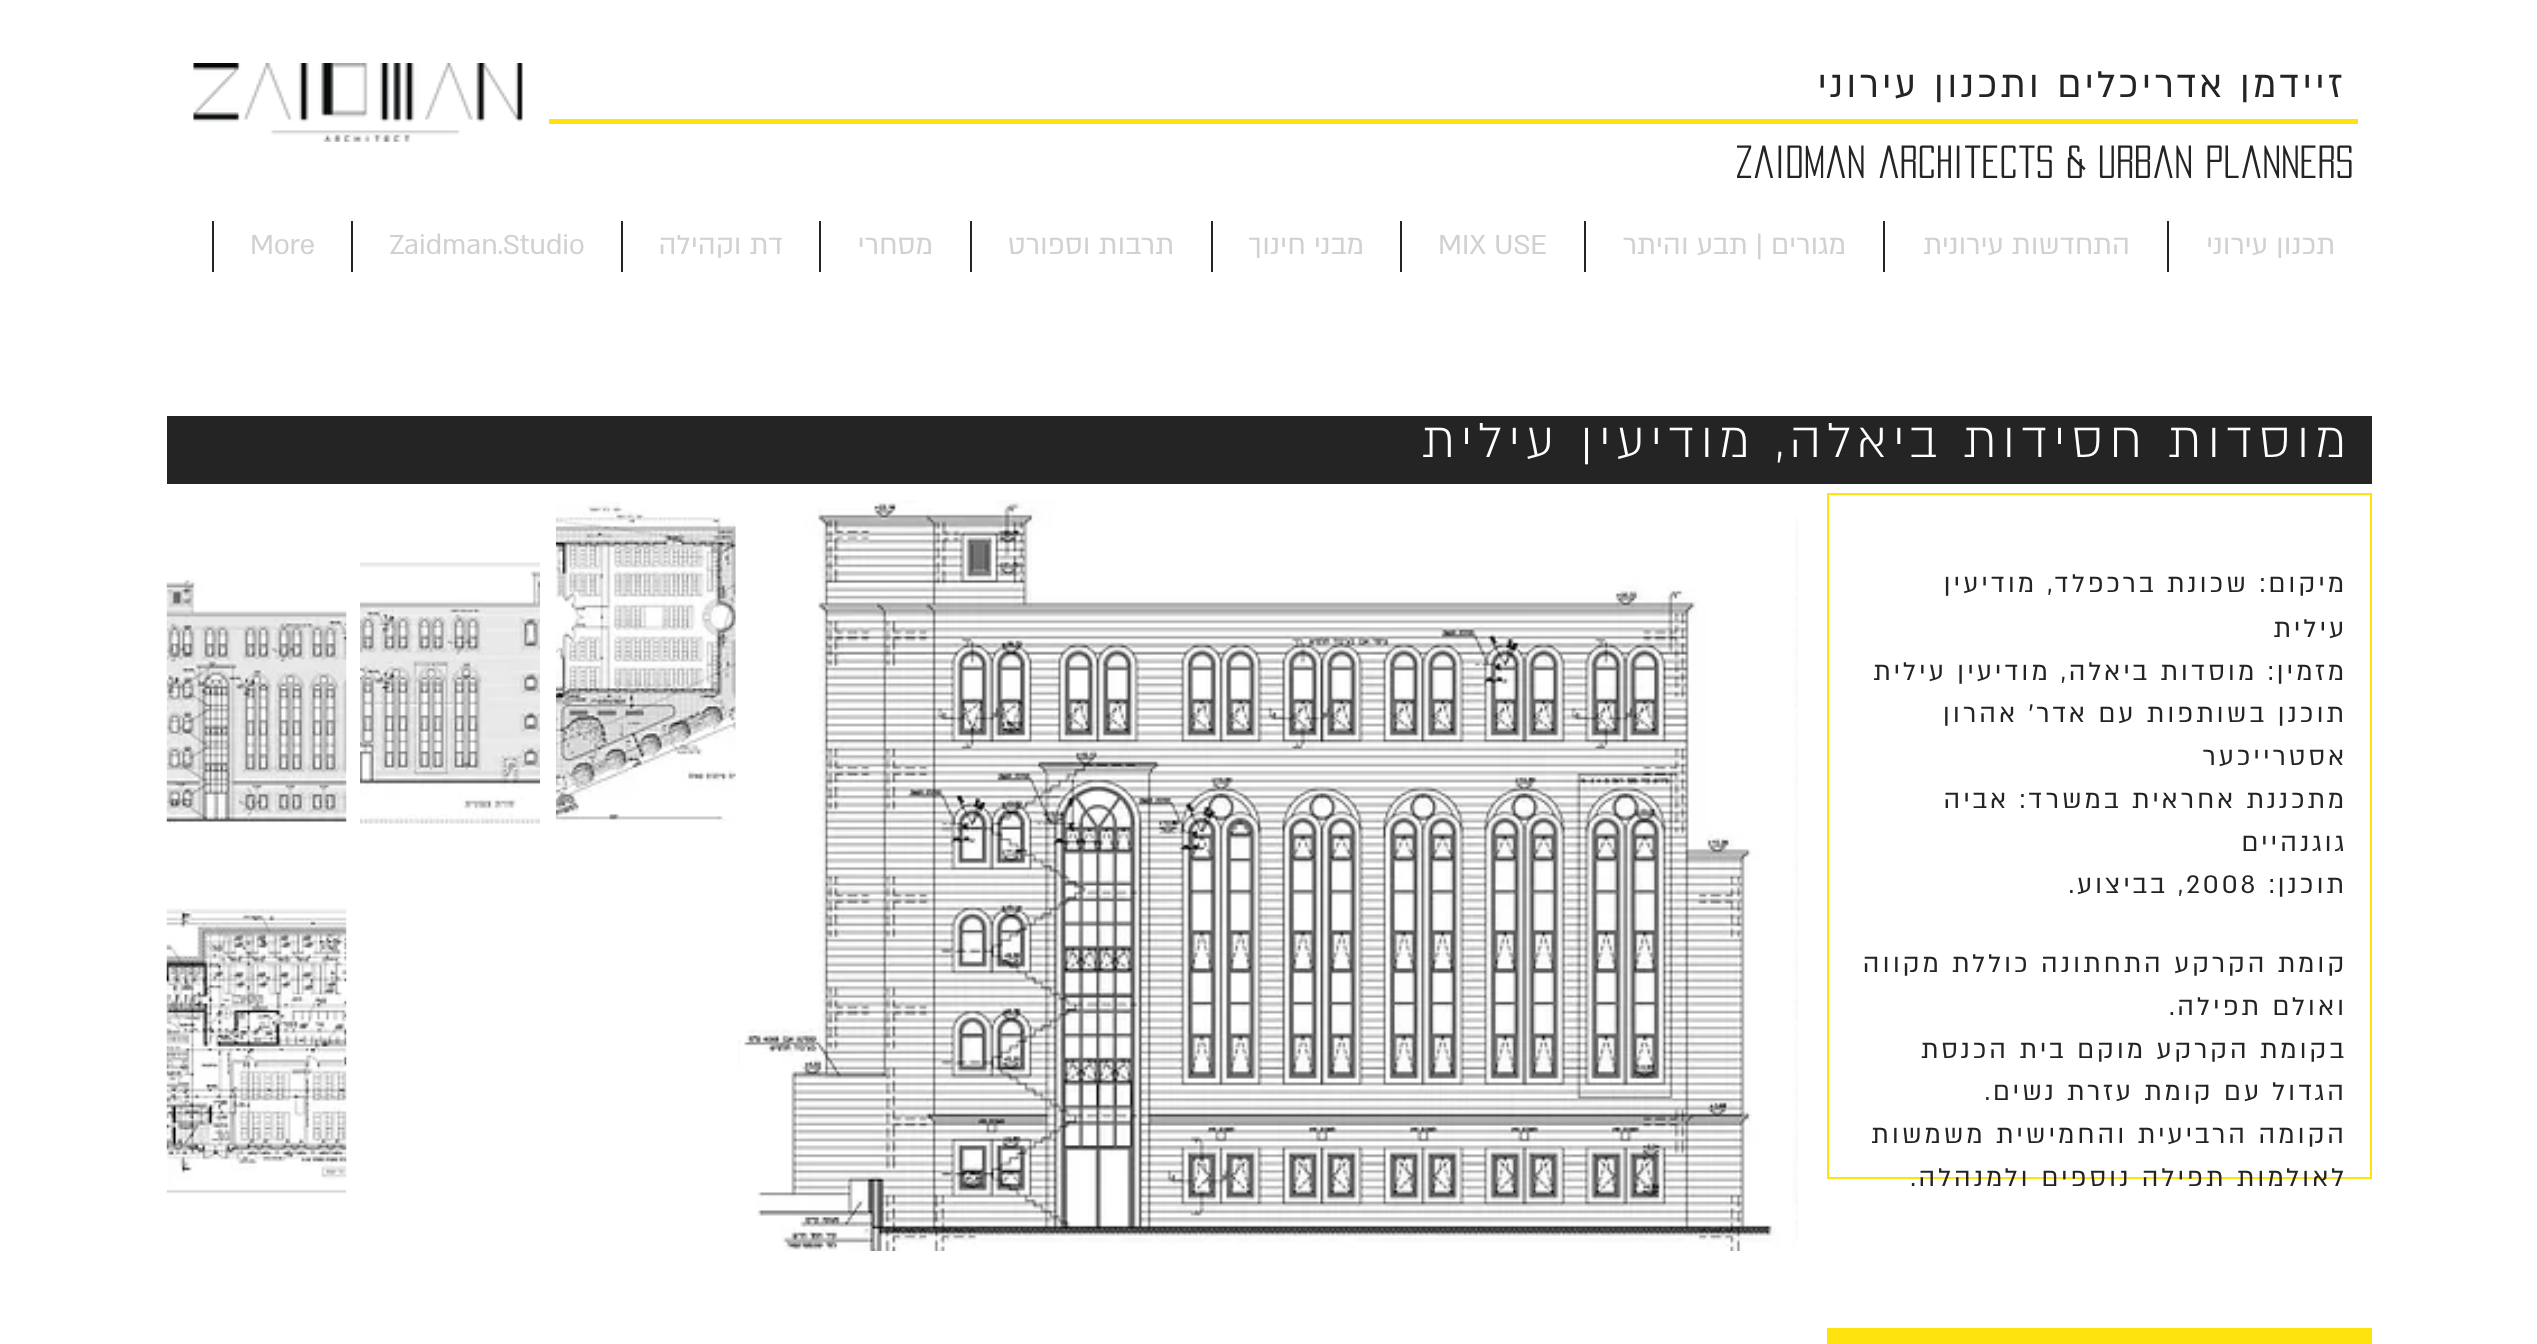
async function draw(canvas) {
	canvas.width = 2537;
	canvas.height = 1344;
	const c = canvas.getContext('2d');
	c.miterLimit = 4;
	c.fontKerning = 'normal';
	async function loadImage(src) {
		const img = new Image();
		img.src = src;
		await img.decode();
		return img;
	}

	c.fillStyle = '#fff';
	c.fillRect(0, 0, 2537, 1344);
	c.letterSpacing = '4.05px';
	c.direction = 'rtl';
	c.font = 'bold 40.5px "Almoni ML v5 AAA"';
	c.fillStyle = '#242424';
	c.fillText('זיידמן אדריכלים ותכנון עירוני', 2345, 97);
	c.drawImage(await loadImage('img1.png'), 193, 63, 330, 79);
	c.fillStyle = '#ffe30f';
	c.fillRect(549, 119, 1809, 5);
	c.letterSpacing = '0px';
	c.direction = 'ltr';
	c.font = '40.5px "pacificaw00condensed"';
	c.fillStyle = '#242424';
	c.fillText('Zaidman architects & urban planners', 1735, 178);
	c.fillRect(2167, 221, 2, 51);
	c.direction = 'rtl';
	c.font = '31.5px "Almoni ML v5 AAA"';
	c.fillStyle = '#d1d1d1';
	c.fillText('תכנון עירוני', 2335, 254);
	c.fillStyle = '#242424';
	c.fillRect(1883, 221, 2, 51);
	c.fillStyle = '#d1d1d1';
	c.fillText('התחדשות עירונית', 2130, 254);
	c.fillStyle = '#242424';
	c.fillRect(1584, 221, 2, 51);
	c.fillStyle = '#d1d1d1';
	c.fillText('מגורים | תבע והיתר', 1846, 254);
	c.fillStyle = '#242424';
	c.fillRect(1400, 221, 2, 51);
	c.direction = 'ltr';
	c.fillStyle = '#d1d1d1';
	c.fillText('MIX USE', 1438, 254);
	c.fillStyle = '#242424';
	c.fillRect(1211, 221, 2, 51);
	c.direction = 'rtl';
	c.fillStyle = '#d1d1d1';
	c.fillText('מבני חינוך', 1364, 254);
	c.fillStyle = '#242424';
	c.fillRect(970, 221, 2, 51);
	c.fillStyle = '#d1d1d1';
	c.fillText('תרבות וספורט', 1174, 254);
	c.fillStyle = '#242424';
	c.fillRect(819, 221, 2, 51);
	c.fillStyle = '#d1d1d1';
	c.fillText('מסחרי', 933, 254);
	c.fillStyle = '#242424';
	c.fillRect(621, 221, 2, 51);
	c.fillStyle = '#d1d1d1';
	c.fillText('דת וקהילה', 783, 254);
	c.fillStyle = '#242424';
	c.fillRect(351, 221, 2, 51);
	c.direction = 'ltr';
	c.fillStyle = '#d1d1d1';
	c.fillText('Zaidman.Studio', 389, 254);
	c.fillStyle = '#242424';
	c.fillRect(212, 221, 2, 51);
	c.fillStyle = '#d1d1d1';
	c.fillText('More', 250, 254);
	c.fillStyle = '#242424';
	c.fillRect(167, 416, 2205, 68);
	c.letterSpacing = '5.6px';
	c.direction = 'rtl';
	c.font = '300 56.25px "Almoni ML v5 AAA"';
	c.fillStyle = '#fff';
	c.fillText('מוסדות חסידות ביאלה, מודיעין עילית', 2352, 457);
	c.strokeStyle = '#ffe30f';
	c.lineWidth = 2;
	c.strokeRect(1828, 494, 543, 684);
	c.drawImage(await loadImage('img2.png'), 738, 500, 1060, 751);
	c.drawImage(await loadImage('img3.png'), 555, 502, 181, 321);
	c.drawImage(await loadImage('img4.png'), 360, 562, 180, 262);
	c.drawImage(await loadImage('img5.png'), 166, 579, 181, 245);
	c.drawImage(await loadImage('img6.png'), 166, 908, 181, 286);
	c.letterSpacing = '2.95px';
	c.font = '29.25px "Almoni ML v5 AAA"';
	c.fillStyle = '#242424';
	for (const [text, x, y] of [
		['מיקום: שכונת ברכפלד, מודיעין', 2347, 592],
		['עילית', 2347, 637],
		['מזמין: מוסדות ביאלה, מודיעין עילית', 2347, 680],
		['תוכנן בשותפות עם אדר\' אהרון', 2347, 722],
		['אסטרייכער', 2347, 765],
		['מתכננת אחראית במשרד: אביה', 2347, 808],
		['גוגנהיים', 2347, 851],
		['תוכנן:', 2347, 893],
	]) {
		c.fillText(text, x, y);
	}
	c.direction = 'ltr';
	c.fillText('2008', 2186, 893);
	c.direction = 'rtl';
	for (const [text, x, y] of [
		[', בביצוע.', 2186, 893],
		['קומת הקרקע התחתונה כוללת מקווה', 2347, 972],
		['ואולם תפילה.', 2347, 1015],
		['בקומת הקרקע מוקם בית הכנסת', 2347, 1058],
		['הגדול עם קומת עזרת נשים.', 2347, 1100],
		['הקומה הרביעית והחמישית משמשות', 2347, 1143],
		['לאולמות תפילה נוספים ולמנהלה.', 2347, 1186],
	]) {
		c.fillText(text, x, y);
	}
	c.fillStyle = '#ffe30f';
	c.fillRect(1827, 1328, 545, 16);
}

draw(document.querySelector('canvas'));
